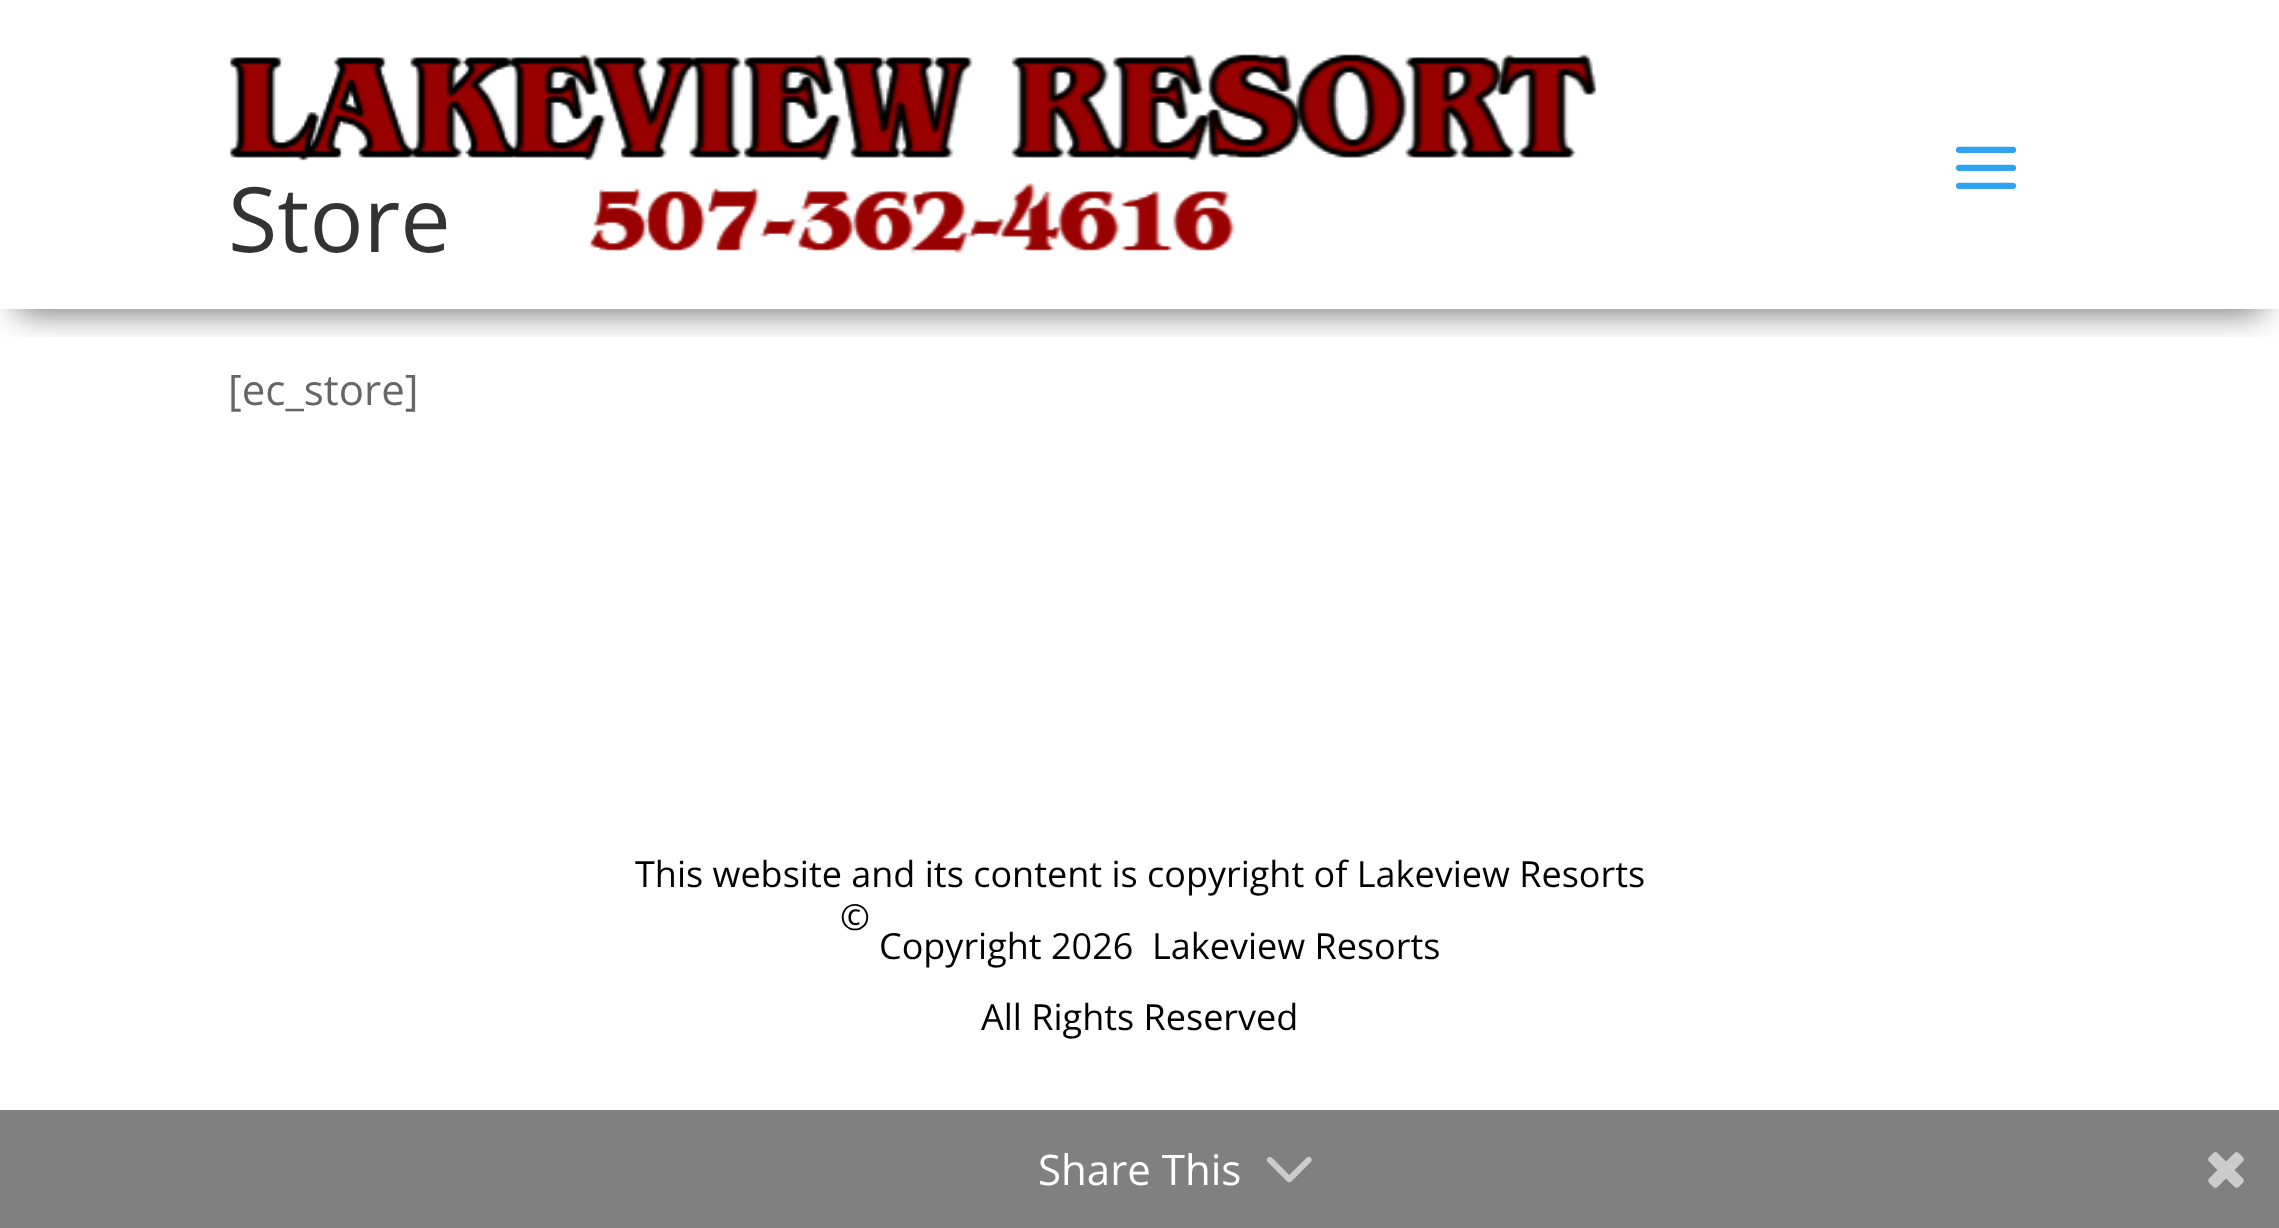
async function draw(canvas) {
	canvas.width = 2279;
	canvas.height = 1228;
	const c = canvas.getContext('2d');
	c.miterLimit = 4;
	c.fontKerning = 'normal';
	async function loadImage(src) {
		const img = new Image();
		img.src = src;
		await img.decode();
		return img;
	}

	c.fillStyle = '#fff';
	c.fillRect(0, 0, 2279, 1228);
	c.save();
	c.beginPath();
	c.rect(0, 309, 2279, 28);
	c.clip();
	c.fillStyle = '#0000004d';
	c.filter = 'blur(16.5px)';
	c.beginPath();
	c.rect(18, 39, 2244, 273);
	c.fill();
	c.filter = 'none';
	c.restore();
	c.font = '90px Open Sans';
	c.fillStyle = '#333';
	c.fillText('Store', 228, 252);
	c.drawImage(await loadImage('img1.png'), 230, 54, 1366, 199);
	c.drawImage(await loadImage('img2.png'), 1956, 146, 60, 43);
	c.save();
	c.beginPath();
	c.rect(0, 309, 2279, 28);
	c.clip();
	c.fillStyle = '#0000004d';
	c.filter = 'blur(16.5px)';
	c.beginPath();
	c.rect(18, 39, 2244, 273);
	c.fill();
	c.filter = 'none';
	c.restore();
	c.drawImage(await loadImage('img3.png'), 230, 54, 1366, 199);
	c.drawImage(await loadImage('img4.png'), 1956, 146, 60, 43);
	c.font = '42px Open Sans';
	c.fillStyle = '#666';
	c.fillText('[ec_store]', 228, 405);
	c.font = '36px Open Sans';
	c.fillStyle = '#000';
	for (const [text, x, y] of [
		['This website and its content is copyright of Lakeview Resorts', 635, 887],
		['©', 840, 930],
		['Copyright 2026', 879, 959],
		['Lakeview Resorts', 1152, 959],
		['All Rights Reserved', 981, 1030],
	]) {
		c.fillText(text, x, y);
	}
	c.fillStyle = '#808080';
	c.fillRect(0, 1110, 2279, 118);
	c.font = '42px Open Sans';
	c.fillStyle = '#fff';
	c.fillText('Share This', 1038, 1185);
	c.drawImage(await loadImage('img5.png'), 1266, 1156, 46, 27);
	c.drawImage(await loadImage('img6.png'), 2208, 1152, 36, 36);
}

draw(document.querySelector('canvas'));
